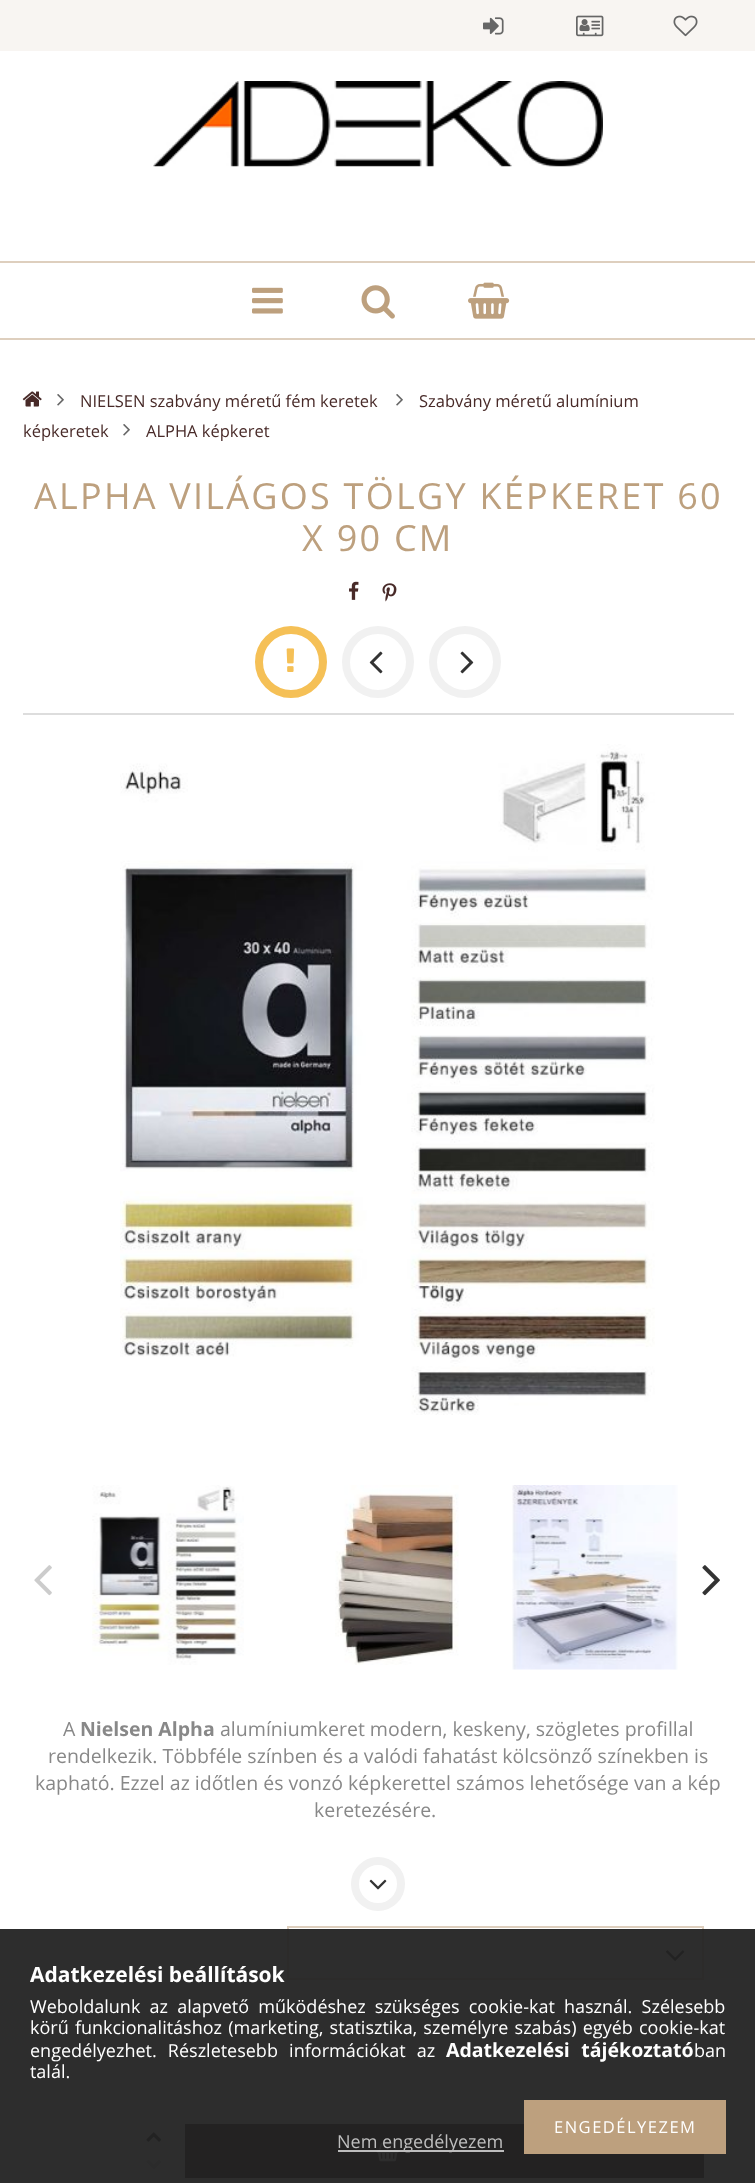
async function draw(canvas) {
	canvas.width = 755;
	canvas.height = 2183;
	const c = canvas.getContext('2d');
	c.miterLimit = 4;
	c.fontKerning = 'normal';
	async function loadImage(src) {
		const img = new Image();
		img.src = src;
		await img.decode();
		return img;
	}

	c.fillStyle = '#fff';
	c.fillRect(0, 0, 755, 2183);
	c.fillStyle = '#f8f5f2';
	c.fillRect(0, 0, 755, 51);
	c.drawImage(await loadImage('img1.png'), 483, 17, 21, 18);
	c.drawImage(await loadImage('img2.png'), 576, 15, 28, 22);
	c.drawImage(await loadImage('img3.png'), 673, 15, 25, 22);
	c.drawImage(await loadImage('img4.png'), 153, 81, 450, 86);
	c.fillStyle = '#decfbe';
	c.fillRect(0, 261, 755, 2);
	c.fillRect(0, 338, 755, 2);
	c.drawImage(await loadImage('img5.png'), 252, 287, 31, 27);
	c.drawImage(await loadImage('img6.png'), 361, 285, 34, 34);
	c.drawImage(await loadImage('img7.png'), 468, 282, 42, 37);
	c.drawImage(await loadImage('img8.png'), 22, 391, 20, 16);
	c.drawImage(await loadImage('img9.png'), 57, 394, 7, 12);
	c.font = '16.5px Open Sans';
	c.fillStyle = '#482a28';
	c.fillText('NIELSEN szabvány méretű fém keretek', 80, 407);
	c.drawImage(await loadImage('img9.png'), 396, 394, 7, 12);
	c.fillText('Szabvány méretű alumínium', 419, 407);
	c.fillText('képkeretek', 23, 437);
	c.drawImage(await loadImage('img9.png'), 123, 424, 7, 12);
	c.fillText('ALPHA képkeret', 146, 437);
	c.fillStyle = '#ddd';
	c.fillRect(23, 713, 711, 2);
	c.letterSpacing = '2.25px';
	c.font = '36px Open Sans';
	c.fillStyle = '#bda07e';
	c.fillText('ALPHA VILÁGOS TÖLGY KÉPKERET 60', 34, 509);
	c.fillText('X 90 CM', 302, 551);
	c.drawImage(await loadImage('img10.png'), 349, 581, 10, 19);
	c.drawImage(await loadImage('img11.png'), 382, 583, 15, 19);
	c.beginPath();
	c.arc(291, 662, 32, 0, 2 * Math.PI);
	c.strokeStyle = '#f5c056';
	c.lineWidth = 8;
	c.stroke();
	c.drawImage(await loadImage('img12.png'), 286, 648, 9, 24);
	c.beginPath();
	c.arc(378, 662, 32, 0, 2 * Math.PI);
	c.strokeStyle = '#f1f1f1';
	c.stroke();
	c.drawImage(await loadImage('img13.png'), 369, 651, 14, 23);
	c.beginPath();
	c.arc(465, 662, 32, 0, 2 * Math.PI);
	c.stroke();
	c.drawImage(await loadImage('img14.png'), 460, 651, 14, 23);
	c.drawImage(await loadImage('img15.png'), 120, 744, 535, 671);
	c.drawImage(await loadImage('img16.png'), 34, 1565, 18, 31);
	c.drawImage(await loadImage('img17.png'), 92, 1485, 152, 180);
	c.drawImage(await loadImage('img18.png'), 335, 1485, 124, 180);
	c.drawImage(await loadImage('img19.png'), 512, 1485, 166, 185);
	c.drawImage(await loadImage('img20.png'), 702, 1565, 18, 31);
	c.letterSpacing = '0px';
	c.font = '19.5px Open Sans';
	c.fillStyle = '#888';
	c.fillText('A', 63, 1736);
	c.font = 'bold 19.5px Open Sans';
	c.fillText('Nielsen Alpha', 80, 1736);
	c.font = '19.5px Open Sans';
	for (const [text, x, y] of [
		['alumíniumkeret modern, keskeny, szögletes profillal', 220, 1736],
		['rendelkezik. Többféle színben és a valódi fahatást kölcsönző színekben is', 48, 1763],
		['kapható. Ezzel az időtlen és vonzó képkerettel számos lehetősége van a kép', 35, 1790],
		['keretezésére.', 314, 1817],
	]) {
		c.fillText(text, x, y);
	}
	c.beginPath();
	c.arc(378, 1884, 23, 0, 2 * Math.PI);
	c.stroke();
	c.drawImage(await loadImage('img21.png'), 369, 1879, 18, 11);
	c.strokeStyle = '#decfbe';
	c.lineWidth = 2;
	c.strokeRect(288, 1927, 415, 52);
	c.drawImage(await loadImage('img22.png'), 666, 1950, 19, 11);
	for (const [x, y, w, h, color] of [
		[23, 2010, 711, 96, '#f8f5f2'],
		[23, 2109, 711, 74, '#f8f5f2'],
		[53, 2124, 87, 54, '#fff'],
		[140, 2124, 30, 54, '#fff'],
	]) {
		c.fillStyle = color;
		c.fillRect(x, y, w, h);
	}
	c.drawImage(await loadImage('img23.png'), 146, 2132, 16, 10);
	c.drawImage(await loadImage('img24.png'), 146, 2159, 15, 11);
	c.fillStyle = '#482a28';
	c.fillRect(185, 2124, 519, 54);
	c.drawImage(await loadImage('img25.png'), 376, 2141, 23, 21);
	c.fillStyle = '#222222f2';
	c.fillRect(0, 1929, 755, 254);
	c.font = 'bold 21px Open Sans';
	c.fillStyle = '#fff';
	c.fillText('Adatkezelési beállítások', 30, 1982);
	c.wordSpacing = '4.5px';
	c.font = '18px Open Sans';
	c.fillText('Weboldalunk az alapvető működéshez szükséges cookie-kat használ. Szélesebb', 30, 2013);
	c.wordSpacing = '1.5px';
	c.fillText('körű funkcionalitáshoz (marketing, statisztika, személyre szabás) egyéb cookie-kat', 30, 2034);
	c.wordSpacing = '6.5px';
	c.fillText('engedélyezhet. Részletesebb információkat az', 30, 2057);
	c.font = 'bold 19.5px Open Sans';
	c.fillText('Adatkezelési tájékoztató', 446, 2057);
	c.wordSpacing = '0px';
	c.font = '18px Open Sans';
	c.fillText('ban', 694, 2057);
	c.fillText('talál.', 30, 2078);
	c.fillStyle = '#bda07e';
	c.fillRect(524, 2100, 202, 54);
	c.letterSpacing = '1.5px';
	c.font = '16.5px Open Sans';
	c.fillStyle = '#fff';
	c.fillText('ENGEDÉLYEZEM', 554, 2133);
	c.fillStyle = '#ffffffb3';
	c.fillRect(338, 2150, 166, 2);
	c.letterSpacing = '0px';
	c.font = '18px Open Sans';
	c.fillStyle = '#bebebe';
	c.fillText('Nem engedélyezem', 337, 2148);
}

draw(document.querySelector('canvas'));
